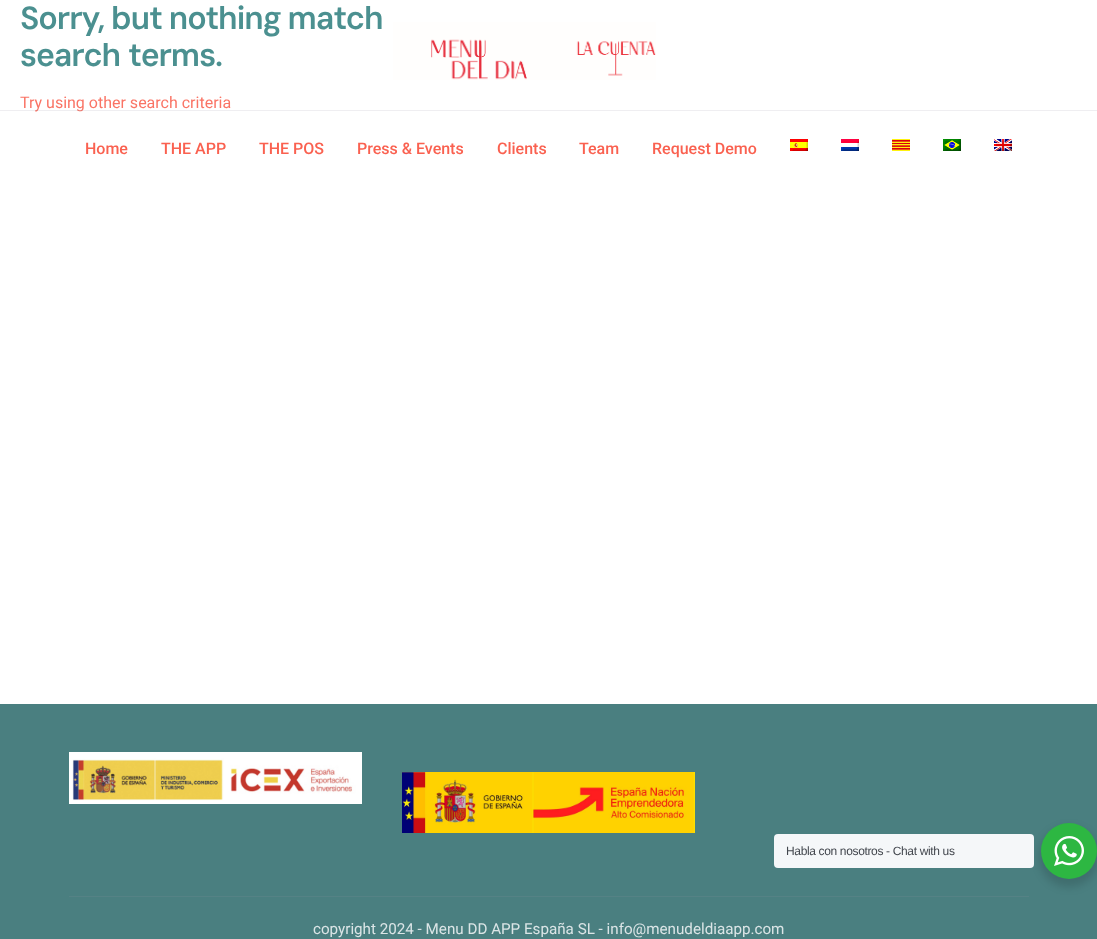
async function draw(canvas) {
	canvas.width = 1097;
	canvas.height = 939;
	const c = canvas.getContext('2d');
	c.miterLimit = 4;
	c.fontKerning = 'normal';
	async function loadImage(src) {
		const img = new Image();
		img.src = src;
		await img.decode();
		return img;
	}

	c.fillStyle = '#fff';
	c.fillRect(0, 0, 1097, 939);
	c.letterSpacing = '-1.1px';
	c.font = '600 32.1px DM Sans';
	c.fillStyle = '#4b9090';
	c.fillText('Sorry, but nothing match', 20, 29);
	c.wordSpacing = '1px';
	c.fillText('search terms.', 20, 66);
	c.letterSpacing = '0px';
	c.wordSpacing = '0px';
	c.font = '16px Roboto';
	c.fillStyle = '#fa7465';
	c.fillText('Try using other search criteria', 20, 108);
	c.drawImage(await loadImage('img1.png'), 393, 22, 263, 58);
	c.fillStyle = '#9690a226';
	c.fillRect(0, 110, 1097, 1);
	c.font = '500 16px Roboto';
	c.fillStyle = '#fa6150';
	for (const [text, x, y] of [
		['Home', 85, 154],
		['THE APP', 161, 154],
		['THE POS', 259, 154],
		['Press & Events', 357, 154],
		['Clients', 497, 154],
		['Team', 579, 154],
		['Request Demo', 652, 154],
	]) {
		c.fillText(text, x, y);
	}
	c.drawImage(await loadImage('img2.png'), 790, 139, 18, 12);
	c.drawImage(await loadImage('img3.png'), 841, 139, 18, 12);
	c.drawImage(await loadImage('img4.png'), 892, 139, 18, 12);
	c.drawImage(await loadImage('img5.png'), 943, 139, 18, 12);
	c.drawImage(await loadImage('img6.png'), 994, 139, 18, 12);
	c.fillStyle = '#4a7f80';
	c.fillRect(0, 704, 1097, 235);
	c.drawImage(await loadImage('img7.png'), 69, 752, 293, 52);
	c.drawImage(await loadImage('img8.png'), 402, 772, 293, 61);
	c.fillStyle = '#558285';
	c.fillRect(69, 896, 960, 1);
	c.font = '15.2px Roboto';
	c.fillStyle = '#dbe5e6';
	c.fillText('copyright 2024 - Menu DD APP España SL - info@menudeldiaapp.com', 313, 934);
	c.fillStyle = '#00000024';
	c.filter = 'blur(4px)';
	c.beginPath();
	c.roundRect(1039, 827, 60, 60, 30);
	c.fill();
	c.filter = 'none';
	c.fillStyle = '#f5f7f9';
	c.beginPath();
	c.roundRect(774, 834, 260, 34, 4);
	c.fill();
	c.letterSpacing = '-0.35px';
	c.font = '12px Liberation Sans';
	c.fillStyle = '#43474e';
	c.fillText('Habla con nosotros - Chat with us', 786, 855);
	c.fillStyle = '#2db742';
	c.beginPath();
	c.arc(1069, 851, 28, 0, 2 * Math.PI);
	c.fill();
	c.drawImage(await loadImage('img9.png'), 1054, 836, 30, 30);
}

draw(document.querySelector('canvas'));
